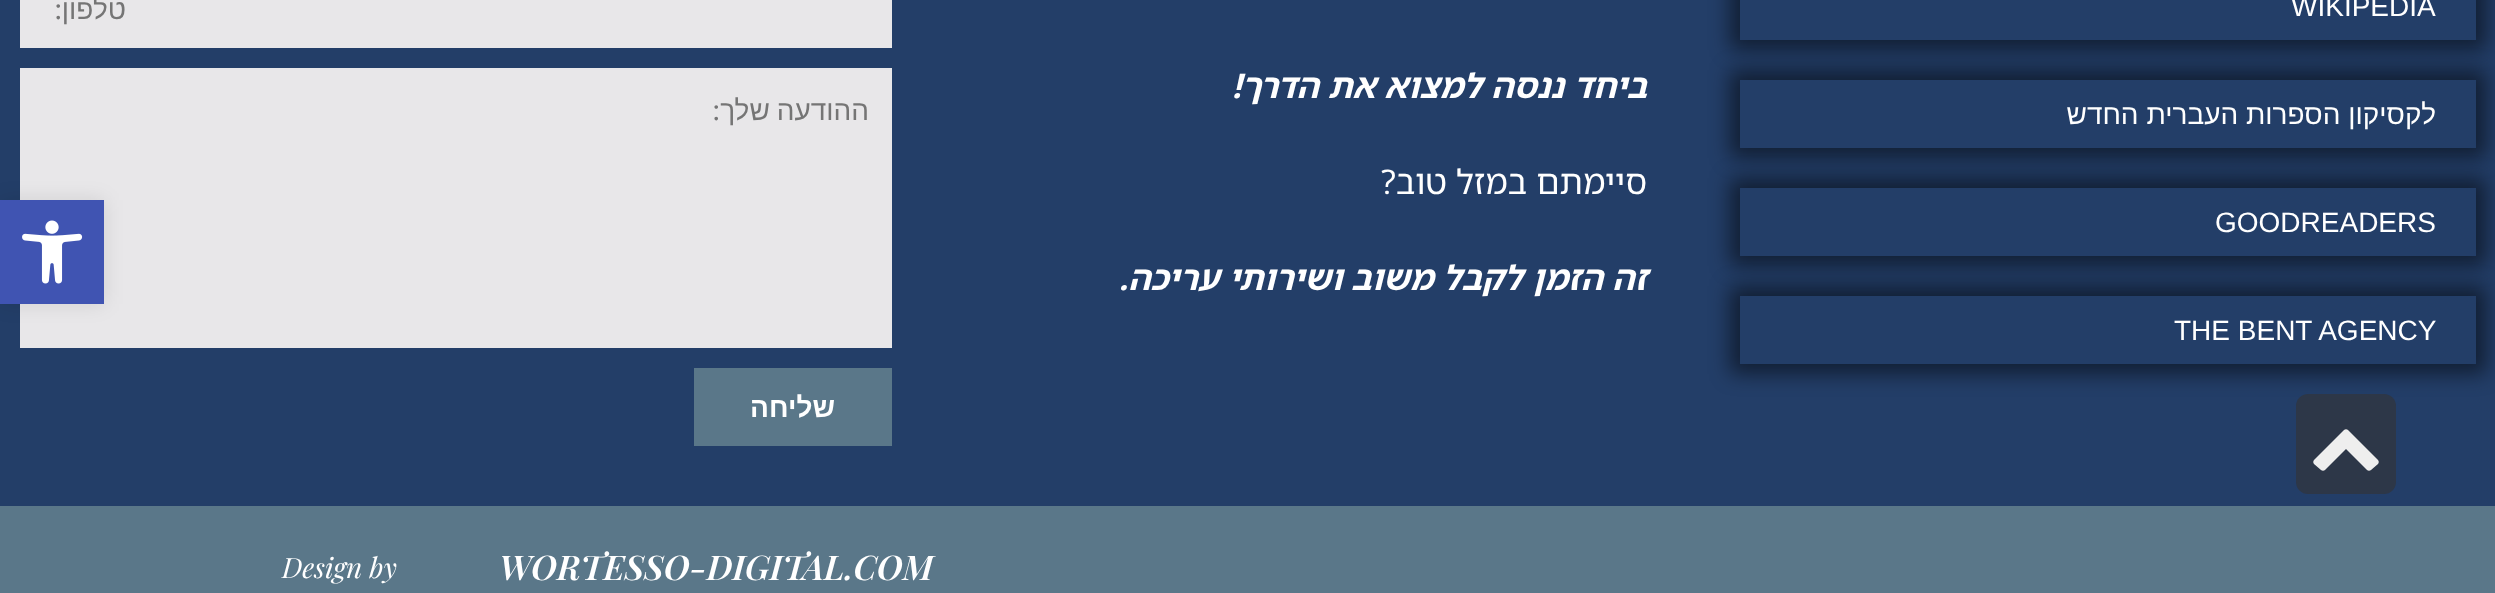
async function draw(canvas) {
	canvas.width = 2495;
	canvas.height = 593;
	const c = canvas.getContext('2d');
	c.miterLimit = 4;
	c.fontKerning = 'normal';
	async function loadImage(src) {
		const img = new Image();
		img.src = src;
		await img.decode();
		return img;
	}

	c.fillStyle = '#233e68';
	c.fillRect(0, 0, 2495, 593);
	c.save();
	c.beginPath();
	c.moveTo(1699, 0);
	c.lineTo(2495, 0);
	c.lineTo(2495, 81);
	c.lineTo(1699, 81);
	c.closePath();
	c.moveTo(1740, -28);
	c.lineTo(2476, -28);
	c.lineTo(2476, 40);
	c.lineTo(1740, 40);
	c.closePath();
	c.clip('evenodd');
	c.fillStyle = '#00000080';
	c.filter = 'blur(10px)';
	c.beginPath();
	c.rect(1730, -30, 756, 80);
	c.fill();
	c.filter = 'none';
	c.restore();
	c.font = '28px Liberation Sans';
	c.fillStyle = '#fff';
	c.fillText('WIKIPEDIA', 2291, 16);
	c.save();
	c.beginPath();
	c.moveTo(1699, 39);
	c.lineTo(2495, 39);
	c.lineTo(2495, 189);
	c.lineTo(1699, 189);
	c.closePath();
	c.moveTo(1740, 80);
	c.lineTo(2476, 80);
	c.lineTo(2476, 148);
	c.lineTo(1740, 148);
	c.closePath();
	c.clip('evenodd');
	c.fillStyle = '#00000080';
	c.filter = 'blur(10px)';
	c.beginPath();
	c.rect(1730, 70, 756, 88);
	c.fill();
	c.filter = 'none';
	c.restore();
	c.direction = 'rtl';
	c.fillText('לקסיקון הספרות העברית החדש', 2436, 124);
	c.save();
	c.beginPath();
	c.moveTo(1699, 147);
	c.lineTo(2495, 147);
	c.lineTo(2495, 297);
	c.lineTo(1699, 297);
	c.closePath();
	c.moveTo(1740, 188);
	c.lineTo(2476, 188);
	c.lineTo(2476, 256);
	c.lineTo(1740, 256);
	c.closePath();
	c.clip('evenodd');
	c.fillStyle = '#00000080';
	c.filter = 'blur(10px)';
	c.beginPath();
	c.rect(1730, 178, 756, 88);
	c.fill();
	c.filter = 'none';
	c.restore();
	c.direction = 'ltr';
	c.fillText('GOODREADERS', 2215, 232);
	c.save();
	c.beginPath();
	c.moveTo(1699, 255);
	c.lineTo(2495, 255);
	c.lineTo(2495, 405);
	c.lineTo(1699, 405);
	c.closePath();
	c.moveTo(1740, 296);
	c.lineTo(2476, 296);
	c.lineTo(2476, 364);
	c.lineTo(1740, 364);
	c.closePath();
	c.clip('evenodd');
	c.fillStyle = '#00000080';
	c.filter = 'blur(10px)';
	c.beginPath();
	c.rect(1730, 286, 756, 88);
	c.fill();
	c.filter = 'none';
	c.restore();
	c.fillText('THE BENT AGENCY', 2174, 340);
	c.direction = 'rtl';
	c.font = 'italic bold 34px Noto Sans Hebrew';
	c.fillText('ביחד ננסה למצוא את הדרך!', 1647, 98);
	c.font = '34px Noto Sans Hebrew';
	c.fillText('סיימתם במזל טוב?', 1647, 194);
	c.font = 'italic bold 34px Noto Sans Hebrew';
	c.fillText('זה הזמן לקבל משוב ושירותי עריכה.', 1647, 290);
	c.fillStyle = '#e8e7e9';
	c.fillRect(20, 0, 872, 48);
	c.font = '28px Liberation Sans';
	c.fillStyle = '#757575';
	c.fillText('טלפון', 126, 19);
	c.font = '28px Playfair Display';
	c.fillText(':', 62, 19);
	c.fillStyle = '#e8e7e9';
	c.fillRect(20, 68, 872, 280);
	c.wordSpacing = '-1px';
	c.font = '28px Liberation Sans';
	c.fillStyle = '#757575';
	c.fillText('ההודעה שלך', 869, 120);
	c.wordSpacing = '0px';
	c.font = '28px Playfair Display';
	c.fillText(':', 720, 120);
	c.fillStyle = '#5a7789';
	c.fillRect(694, 368, 198, 78);
	c.font = 'bold 28px Liberation Sans';
	c.fillStyle = '#fff';
	c.fillText('שליחה', 835, 417);
	c.fillStyle = '#5a7789';
	c.fillRect(0, 506, 2495, 87);
	c.direction = 'ltr';
	c.font = 'italic 600 34px Playfair Display';
	c.fillStyle = '#fff';
	c.fillText('WORTESSO-DIGITAL.COM', 499, 580);
	c.font = 'italic 28px Playfair Display';
	c.fillText('Design by', 282, 578);
	c.fillStyle = '#0000001a';
	c.filter = 'blur(10px)';
	c.beginPath();
	c.rect(0, 200, 104, 104);
	c.fill();
	c.filter = 'none';
	c.fillStyle = '#4054b2';
	c.fillRect(0, 200, 104, 104);
	c.drawImage(await loadImage('img1.png'), 22, 220, 61, 64);
	c.fillStyle = '#2d3748';
	c.beginPath();
	c.roundRect(2296, 394, 100, 100, 12);
	c.fill();
	c.fillStyle = '#eee';
	c.beginPath();
	c.moveTo(2378, 464);
	c.bezierCurveTo(2379, 463, 2379, 461, 2378, 460);
	c.lineTo(2348, 430);
	c.bezierCurveTo(2347, 429, 2345, 429, 2344, 430);
	c.lineTo(2314, 460);
	c.bezierCurveTo(2313, 461, 2313, 463, 2314, 464);
	c.lineTo(2321, 470);
	c.bezierCurveTo(2322, 471, 2324, 471, 2325, 470);
	c.lineTo(2346, 449);
	c.lineTo(2367, 470);
	c.bezierCurveTo(2368, 471, 2370, 471, 2371, 470);
	c.closePath();
	c.fill();
}

draw(document.querySelector('canvas'));
